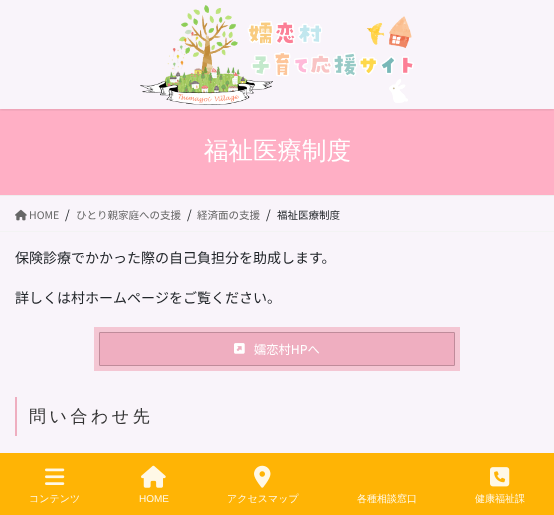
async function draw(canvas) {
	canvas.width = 554;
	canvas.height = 515;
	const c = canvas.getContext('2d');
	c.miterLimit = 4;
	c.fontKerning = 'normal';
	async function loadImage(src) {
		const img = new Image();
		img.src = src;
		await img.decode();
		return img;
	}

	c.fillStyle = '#f9f4fa';
	c.fillRect(0, 0, 554, 515);
	c.fillStyle = '#ffafc5';
	c.fillRect(0, 109, 554, 86);
	c.save();
	c.beginPath();
	c.rect(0, 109, 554, 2);
	c.clip();
	c.fillStyle = '#0000001a';
	c.filter = 'blur(1.5px)';
	c.beginPath();
	c.rect(0, 1, 554, 109);
	c.fill();
	c.filter = 'none';
	c.restore();
	c.drawImage(await loadImage('img1.png'), 140, 5, 274, 100);
	c.fillStyle = '#eee';
	c.fillRect(0, 195, 554, 1);
	c.font = '500 24.5px WenQuanYi Zen Hei';
	c.fillStyle = '#fff';
	c.fillText('福祉医療制度', 204, 159);
	c.fillStyle = '#f3f3f3';
	c.fillRect(0, 231, 554, 1);
	c.drawImage(await loadImage('img2.png'), 15, 209, 12, 12);
	c.font = '10.5px Noto Sans JP';
	c.fillStyle = '#666';
	c.fillText('HOME', 29, 219);
	c.font = '12px Noto Sans JP';
	c.fillStyle = '#212529';
	c.fillText('/', 65, 219);
	c.font = '10.5px Noto Sans JP';
	c.fillStyle = '#666';
	c.fillText('ひとり親家庭への支援', 76, 219);
	c.font = '12px Noto Sans JP';
	c.fillStyle = '#212529';
	c.fillText('/', 187, 219);
	c.font = '10.5px Noto Sans JP';
	c.fillStyle = '#666';
	c.fillText('経済面の支援', 197, 219);
	c.font = '12px Noto Sans JP';
	c.fillStyle = '#212529';
	c.fillText('/', 266, 219);
	c.font = '10.5px Noto Sans JP';
	c.fillText('福祉医療制度', 277, 219);
	c.font = '14px Noto Sans JP';
	c.fillText('保険診療でかかった際の自己負担分を助成します。', 15, 263);
	c.fillText('詳しくは村ホームページをご覧ください。', 15, 303);
	c.fillStyle = '#efaec0';
	c.beginPath();
	c.rect(99.5, 332.5, 355, 33);
	c.fill();
	c.strokeStyle = '#bf8b9a';
	c.stroke();
	c.strokeStyle = '#f4c6d3';
	c.lineWidth = 5;
	c.strokeRect(96.5, 329.5, 361, 39);
	c.drawImage(await loadImage('img3.png'), 234, 343, 11, 11);
	c.font = '12.25px Noto Sans JP';
	c.fillStyle = '#fff';
	c.fillText('嬬恋村HPへ', 254, 354);
	c.fillStyle = '#efaec0';
	c.fillRect(15, 397, 2, 39);
	c.letterSpacing = '3.5px';
	c.font = '500 17px WenQuanYi Zen Hei';
	c.fillStyle = '#333';
	c.fillText('問い合わせ先', 29, 422);
	c.fillStyle = '#ffb405';
	c.fillRect(0, 453, 554, 62);
	c.drawImage(await loadImage('img4.png'), 45, 468, 20, 17);
	c.letterSpacing = '0px';
	c.font = '500 10px WenQuanYi Zen Hei';
	c.fillStyle = '#fff8e6';
	c.fillText('コンテンツ', 29, 502);
	c.drawImage(await loadImage('img5.png'), 141, 465, 25, 23);
	c.font = '10px Liberation Sans';
	c.fillText('HOME', 139, 502);
	c.drawImage(await loadImage('img6.png'), 254, 465, 17, 23);
	c.font = '500 10px WenQuanYi Zen Hei';
	c.fillText('アクセスマップ', 227, 502);
	c.fillText('各種相談窓口', 357, 502);
	c.drawImage(await loadImage('img7.png'), 490, 467, 20, 20);
	c.fillText('健康福祉課', 475, 502);
}

draw(document.querySelector('canvas'));
